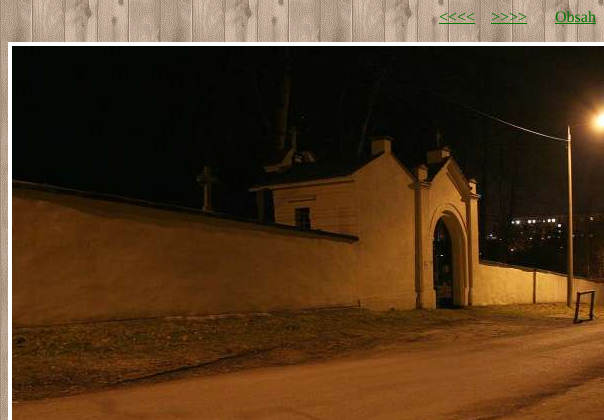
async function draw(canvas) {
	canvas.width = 604;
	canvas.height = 420;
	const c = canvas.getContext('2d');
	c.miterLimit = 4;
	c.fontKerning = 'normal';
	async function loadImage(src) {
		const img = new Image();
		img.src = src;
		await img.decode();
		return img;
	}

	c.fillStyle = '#fff';
	c.fillRect(0, 0, 604, 420);
	c.drawImage(await loadImage('img1.png'), 0, 0, 604, 420);
	c.font = '16px Liberation Serif';
	c.fillStyle = '#070';
	c.fillText('<<<<', 439, 22);
	c.fillRect(439, 23, 36, 1);
	c.fillText('>>>>', 491, 22);
	c.fillRect(491, 23, 36, 1);
	c.fillText('Obsah', 555, 22);
	c.fillRect(555, 23, 41, 1);
	c.fillStyle = '#fff';
	c.fillRect(8, 42, 596, 378);
	c.drawImage(await loadImage('img2.png'), 12, 46, 592, 374);
}

draw(document.querySelector('canvas'));
